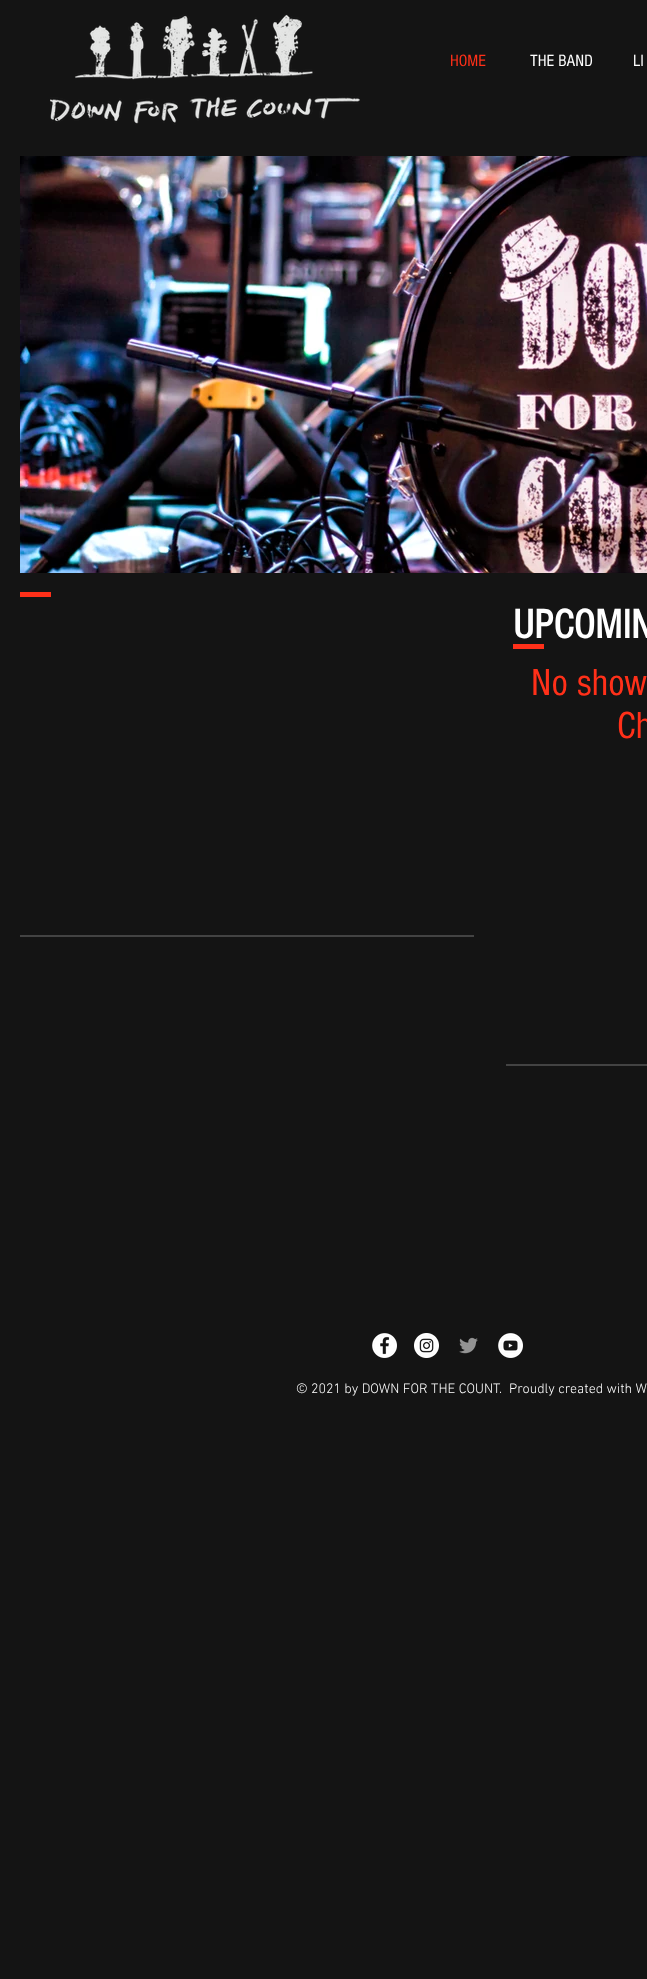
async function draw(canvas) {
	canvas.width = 647;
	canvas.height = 1979;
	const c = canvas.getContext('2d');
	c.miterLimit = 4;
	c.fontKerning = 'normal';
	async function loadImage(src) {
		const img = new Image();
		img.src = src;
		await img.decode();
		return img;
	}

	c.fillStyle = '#141414';
	c.fillRect(0, 0, 647, 1979);
	c.drawImage(await loadImage('img1.png'), 50, 14, 310, 111);
	c.font = '17px "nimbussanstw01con"';
	c.fillStyle = '#ff3019';
	c.fillText('HOME', 450, 66);
	c.fillStyle = '#fff';
	c.fillText('THE BAND', 530, 66);
	c.fillText('LI', 633, 66);
	c.drawImage(await loadImage('img2.png'), 20, 156, 627, 417);
	c.fillStyle = '#ff3019';
	c.fillRect(20, 592, 31, 5);
	c.font = 'bold 42px "nimbussanstw01con"';
	c.fillStyle = '#fff';
	c.fillText('UPCOMIN', 513, 638);
	c.fillStyle = '#ff3019';
	c.fillRect(513, 644, 31, 5);
	c.font = '39px "nimbussanstw01con"';
	c.fillText('No show', 531, 695);
	c.fillText('Ch', 617, 738);
	c.fillStyle = '#434343';
	c.fillRect(20, 935, 454, 2);
	c.fillRect(506, 1064, 141, 2);
	c.drawImage(await loadImage('img3.png'), 372, 1333, 25, 25);
	c.drawImage(await loadImage('img4.png'), 414, 1333, 25, 25);
	c.drawImage(await loadImage('img5.png'), 459, 1337, 19, 17);
	c.drawImage(await loadImage('img6.png'), 498, 1333, 25, 25);
	c.font = '300 14px "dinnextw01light"';
	c.fillStyle = '#fff';
	c.fillText('© 2021 by DOWN FOR THE COUNT.  Proudly created with W', 296, 1393);
}

draw(document.querySelector('canvas'));
